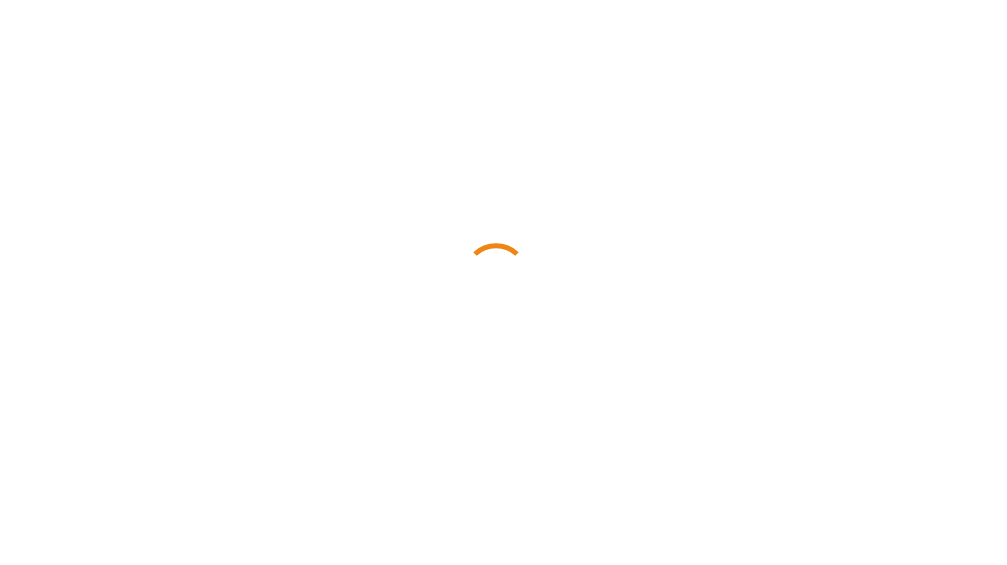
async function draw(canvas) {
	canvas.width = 1007;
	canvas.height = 565;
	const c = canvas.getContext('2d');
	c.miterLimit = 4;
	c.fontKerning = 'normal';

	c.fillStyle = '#fff';
	c.fillRect(0, 0, 1007, 565);
	c.beginPath();
	c.moveTo(475, 254);
	c.bezierCurveTo(486.5, 243, 505.5, 243, 517, 254);
	c.moveTo(475, 254);
	c.bezierCurveTo(486.5, 243, 505.5, 243, 517, 254);
	c.moveTo(475, 254);
	c.bezierCurveTo(486.5, 243, 505.5, 243, 517, 254);
	c.moveTo(475, 254);
	c.bezierCurveTo(486.5, 243, 505.5, 243, 517, 254);
	c.strokeStyle = '#ee8514';
	c.lineWidth = 5;
	c.stroke();
}

draw(document.querySelector('canvas'));
